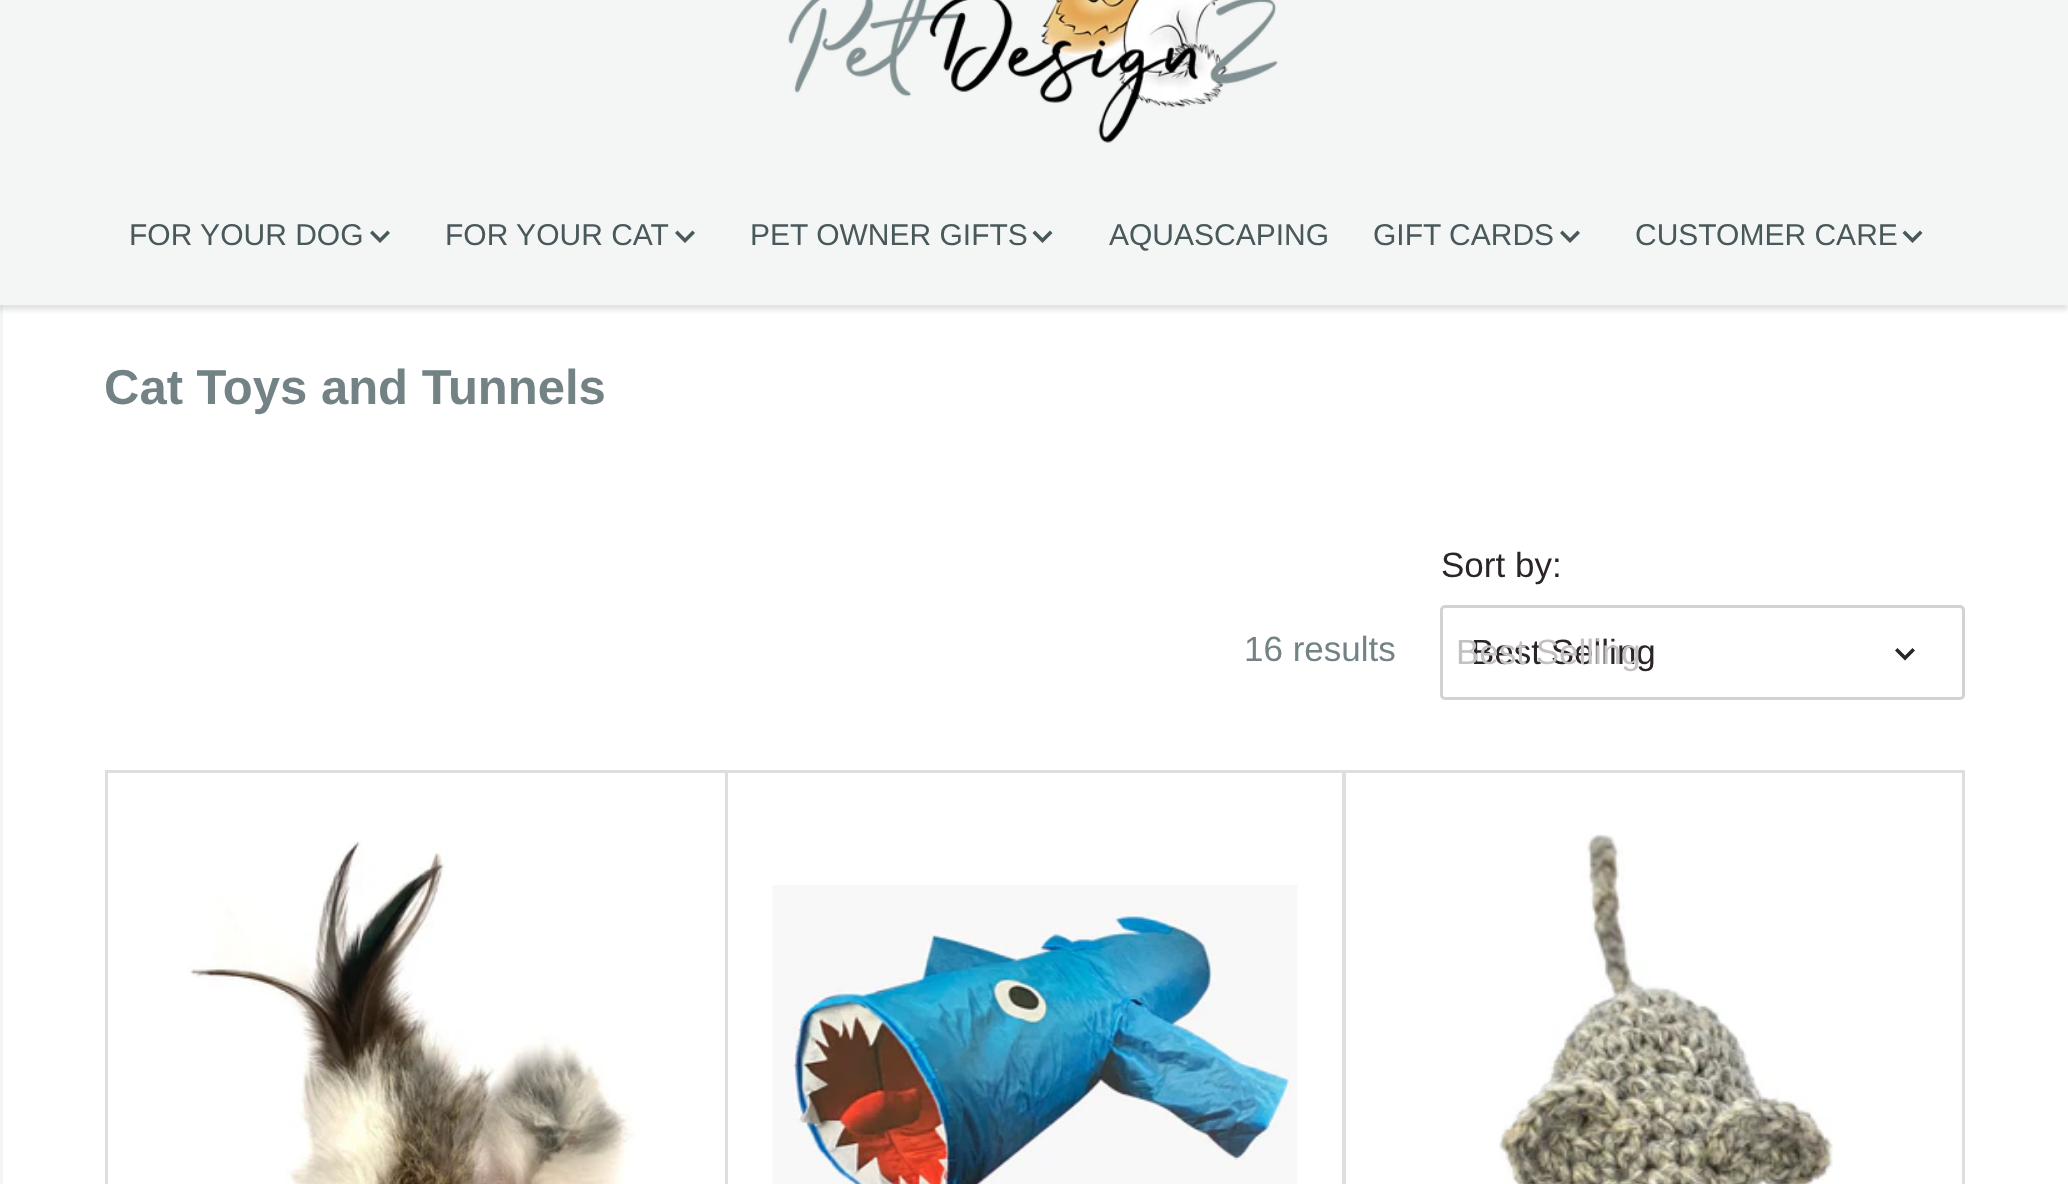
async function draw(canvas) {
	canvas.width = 2068;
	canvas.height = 1184;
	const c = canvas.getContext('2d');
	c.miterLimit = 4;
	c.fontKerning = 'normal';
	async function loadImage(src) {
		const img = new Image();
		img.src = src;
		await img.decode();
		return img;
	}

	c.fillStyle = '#f4f5f5';
	c.fillRect(0, 0, 2068, 1184);
	c.fillStyle = '#fff';
	c.fillRect(3, 305, 2065, 879);
	c.fillStyle = '#0b191c1f';
	c.filter = 'blur(2.5px)';
	c.beginPath();
	c.rect(-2, -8, 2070, 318);
	c.fill();
	c.filter = 'none';
	c.fillStyle = '#f4f5f5';
	c.fillRect(0, 0, 2068, 305);
	c.drawImage(await loadImage('img1.png'), 788, 0, 490, 143);
	c.font = '30px Arimo';
	c.fillStyle = '#49585a';
	c.fillText('FOR YOUR DOG', 129, 245);
	c.beginPath();
	c.moveTo(372.5, 230.5);
	c.lineTo(380, 238);
	c.lineTo(387.5, 230.5);
	c.lineTo(390, 233);
	c.lineTo(380, 243);
	c.lineTo(370, 233);
	c.closePath();
	c.fill();
	c.fillText('FOR YOUR CAT', 445, 245);
	c.beginPath();
	c.moveTo(677.5, 230.5);
	c.lineTo(685, 238);
	c.lineTo(692.5, 230.5);
	c.lineTo(695, 233);
	c.lineTo(685, 243);
	c.lineTo(675, 233);
	c.closePath();
	c.fill();
	c.fillText('PET OWNER GIFTS', 750, 245);
	c.beginPath();
	c.moveTo(1035, 230.5);
	c.lineTo(1042.5, 238);
	c.lineTo(1050, 230.5);
	c.lineTo(1052.5, 233);
	c.lineTo(1042.5, 243);
	c.lineTo(1032.5, 233);
	c.closePath();
	c.fill();
	c.fillText('AQUASCAPING', 1109, 245);
	c.fillText('GIFT CARDS', 1373, 245);
	c.beginPath();
	c.moveTo(1562.5, 230.5);
	c.lineTo(1570, 238);
	c.lineTo(1577.5, 230.5);
	c.lineTo(1580, 233);
	c.lineTo(1570, 243);
	c.lineTo(1560, 233);
	c.closePath();
	c.fill();
	c.fillText('CUSTOMER CARE', 1635, 245);
	c.beginPath();
	c.moveTo(1905, 230.5);
	c.lineTo(1912.5, 238);
	c.lineTo(1920, 230.5);
	c.lineTo(1922.5, 233);
	c.lineTo(1912.5, 243);
	c.lineTo(1902.5, 233);
	c.closePath();
	c.fill();
	c.font = 'bold 49px Arimo';
	c.fillStyle = '#738385';
	c.fillText('Cat Toys and Tunnels', 104, 404);
	c.font = '35px Arimo';
	c.fillText('16 results', 1244, 661);
	c.fillStyle = '#2c2528';
	c.fillText('Sort by:', 1441, 577);
	c.beginPath();
	c.roundRect(1441.5, 606.5, 522, 92, 3.5);
	c.strokeStyle = '#d3d1d2';
	c.lineWidth = 3;
	c.stroke();
	c.fillText('Best Selling', 1471, 664);
	c.font = '35px Liberation Sans';
	c.fillStyle = '#c3c1c2';
	c.fillText('Best Selling', 1456, 664);
	c.fillStyle = '#2c2528';
	c.beginPath();
	c.moveTo(1897.5, 648);
	c.lineTo(1905, 655.5);
	c.lineTo(1912.5, 648);
	c.lineTo(1915, 650.5);
	c.lineTo(1905, 660.5);
	c.lineTo(1895, 650.5);
	c.closePath();
	c.fill();
	c.strokeStyle = '#dfdedf';
	c.strokeRect(106.5, 771.5, 620, 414);
	c.drawImage(await loadImage('img2.png'), 188, 841, 447, 343);
	c.strokeRect(726.5, 771.5, 617, 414);
	c.drawImage(await loadImage('img3.png'), 772, 885, 526, 299);
	c.strokeRect(1344.5, 771.5, 619, 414);
	c.drawImage(await loadImage('img4.png'), 1499, 833, 334, 351);
}

draw(document.querySelector('canvas'));
